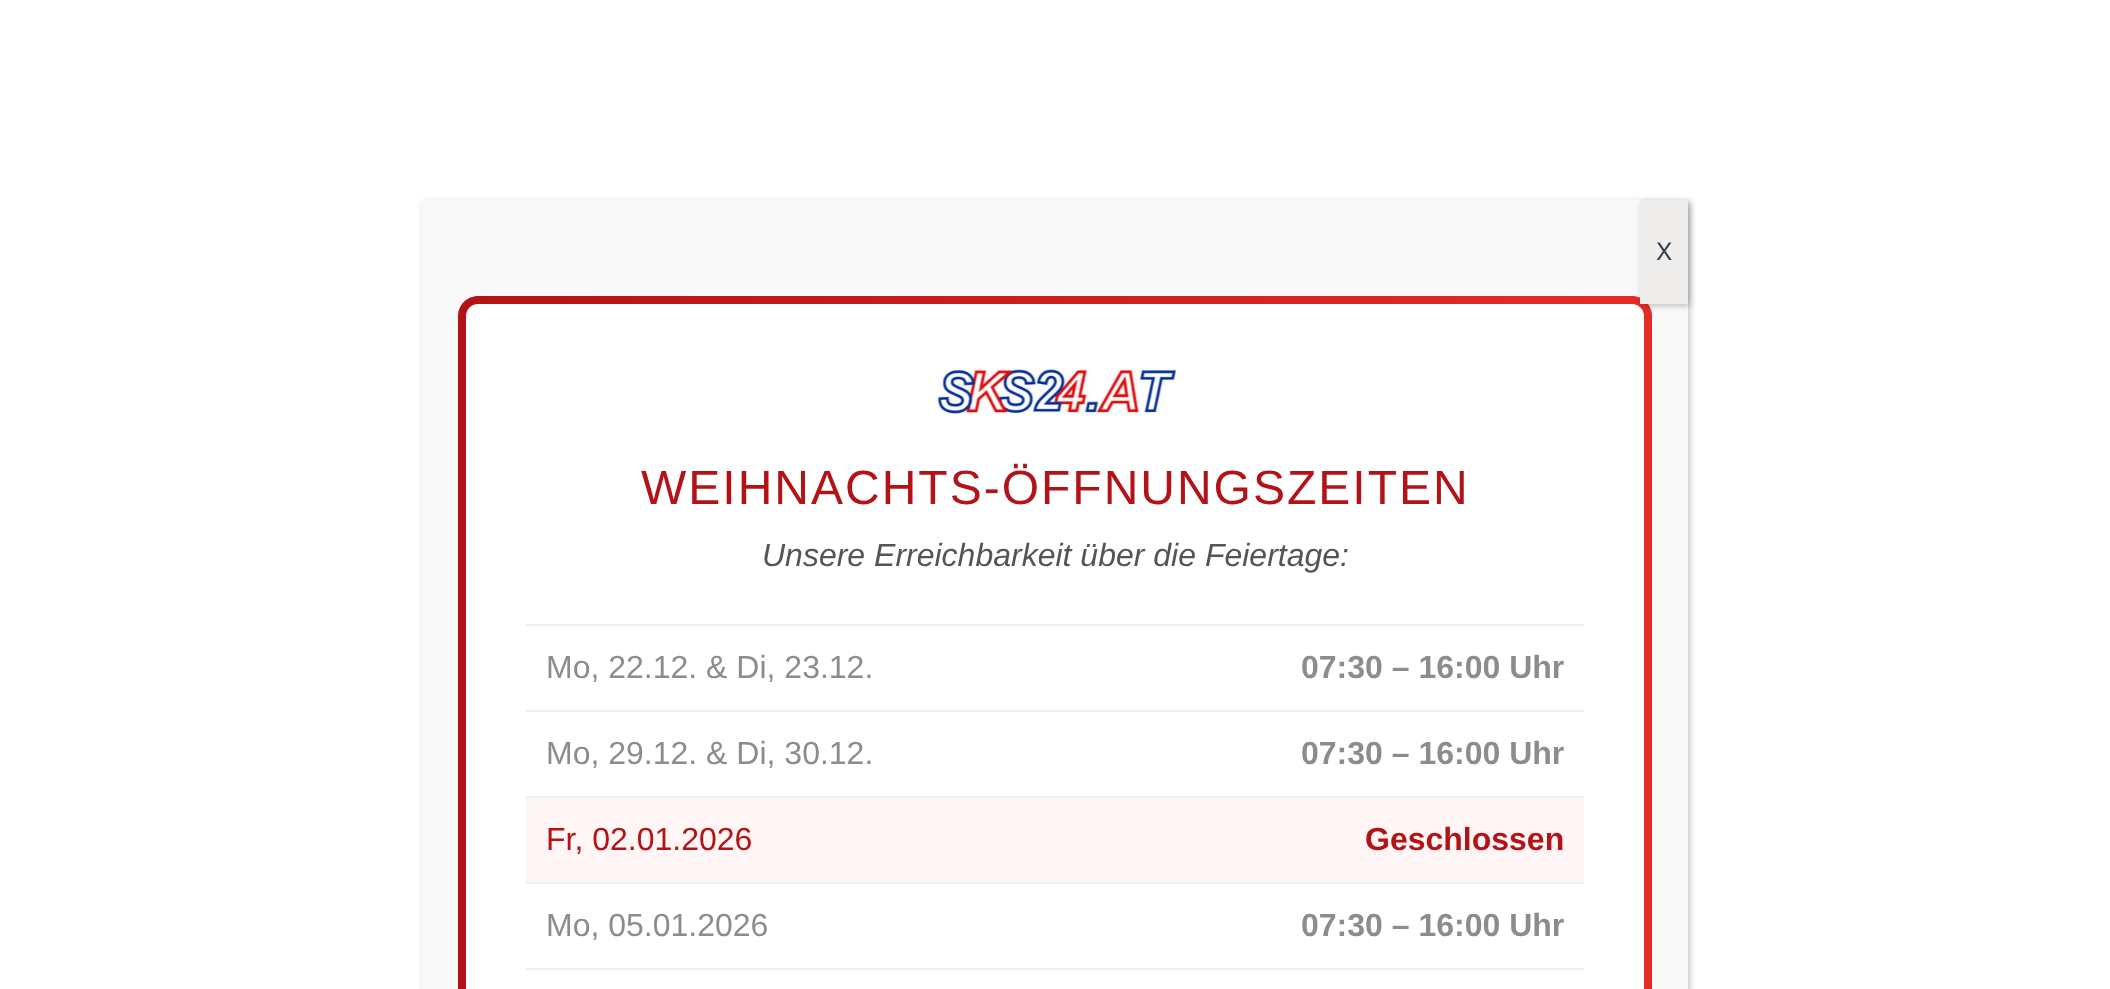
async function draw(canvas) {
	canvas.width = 2110;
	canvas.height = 989;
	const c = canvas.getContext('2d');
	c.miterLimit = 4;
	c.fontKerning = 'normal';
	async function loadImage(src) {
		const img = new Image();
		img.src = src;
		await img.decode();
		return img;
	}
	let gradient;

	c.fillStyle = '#fff';
	c.fillRect(0, 0, 2110, 989);
	c.fillStyle = '#0202023b';
	c.filter = 'blur(3px)';
	c.beginPath();
	c.rect(424, 202, 1266, 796);
	c.fill();
	c.filter = 'none';
	c.fillStyle = '#f9f9f9';
	c.fillRect(422, 200, 1266, 789);
	gradient = c.createLinearGradient(458, 883, 1652, 883);
	gradient.addColorStop(0, '#b31217');
	gradient.addColorStop(1, '#e52d27');
	c.fillStyle = gradient;
	c.beginPath();
	c.moveTo(478, 296);
	c.lineTo(1632, 296);
	c.bezierCurveTo(1643, 296, 1652, 305, 1652, 316);
	c.lineTo(1652, 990);
	c.lineTo(458, 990);
	c.lineTo(458, 316);
	c.bezierCurveTo(458, 305, 467, 296, 478, 296);
	c.closePath();
	c.fill();
	c.fillStyle = '#fff';
	c.beginPath();
	c.moveTo(478, 304);
	c.lineTo(1632, 304);
	c.bezierCurveTo(1638.5, 304, 1644, 309.5, 1644, 316);
	c.lineTo(1644, 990);
	c.lineTo(466, 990);
	c.lineTo(466, 316);
	c.bezierCurveTo(466, 309.5, 471.5, 304, 478, 304);
	c.closePath();
	c.fill();
	c.fillStyle = '#0202023b';
	c.filter = 'blur(3px)';
	c.beginPath();
	c.rect(1642, 202, 48, 104);
	c.fill();
	c.filter = 'none';
	c.fillStyle = '#efecec';
	c.fillRect(1640, 200, 48, 104);
	c.font = '24px Inter';
	c.fillStyle = '#333e48';
	c.fillText('X', 1656, 260);
	c.drawImage(await loadImage('img1.png'), 936, 368, 240, 47);
	c.letterSpacing = '2px';
	c.font = '48px Liberation Sans';
	c.fillStyle = '#b31217';
	c.fillText('WEIHNACHTS-ÖFFNUNGSZEITEN', 641, 504);
	c.letterSpacing = '0px';
	c.font = 'italic 32px Liberation Sans';
	c.fillStyle = '#555';
	c.fillText('Unsere Erreichbarkeit über die Feiertage:', 762, 566);
	c.fillStyle = '#eee';
	c.fillRect(526, 624, 1058, 2);
	c.fillRect(526, 710, 1058, 2);
	c.font = '32px Liberation Sans';
	c.fillStyle = '#8c8c8c';
	c.fillText('Mo, 22.12. & Di, 23.12.', 546, 678);
	c.font = 'bold 32px Liberation Sans';
	c.fillText('07:30 – 16:00 Uhr', 1301, 678);
	c.fillStyle = '#eee';
	c.fillRect(526, 796, 1058, 2);
	c.font = '32px Liberation Sans';
	c.fillStyle = '#8c8c8c';
	c.fillText('Mo, 29.12. & Di, 30.12.', 546, 764);
	c.font = 'bold 32px Liberation Sans';
	c.fillText('07:30 – 16:00 Uhr', 1301, 764);
	c.fillStyle = '#fff5f5';
	c.fillRect(526, 798, 1058, 84);
	c.fillStyle = '#eee';
	c.fillRect(526, 882, 1058, 2);
	c.font = '32px Liberation Sans';
	c.fillStyle = '#b31217';
	c.fillText('Fr, 02.01.2026', 546, 850);
	c.font = 'bold 32px Liberation Sans';
	c.fillText('Geschlossen', 1365, 850);
	c.fillStyle = '#eee';
	c.fillRect(526, 968, 1058, 2);
	c.font = '32px Liberation Sans';
	c.fillStyle = '#8c8c8c';
	c.fillText('Mo, 05.01.2026', 546, 936);
	c.font = 'bold 32px Liberation Sans';
	c.fillText('07:30 – 16:00 Uhr', 1301, 936);
}

draw(document.querySelector('canvas'));
